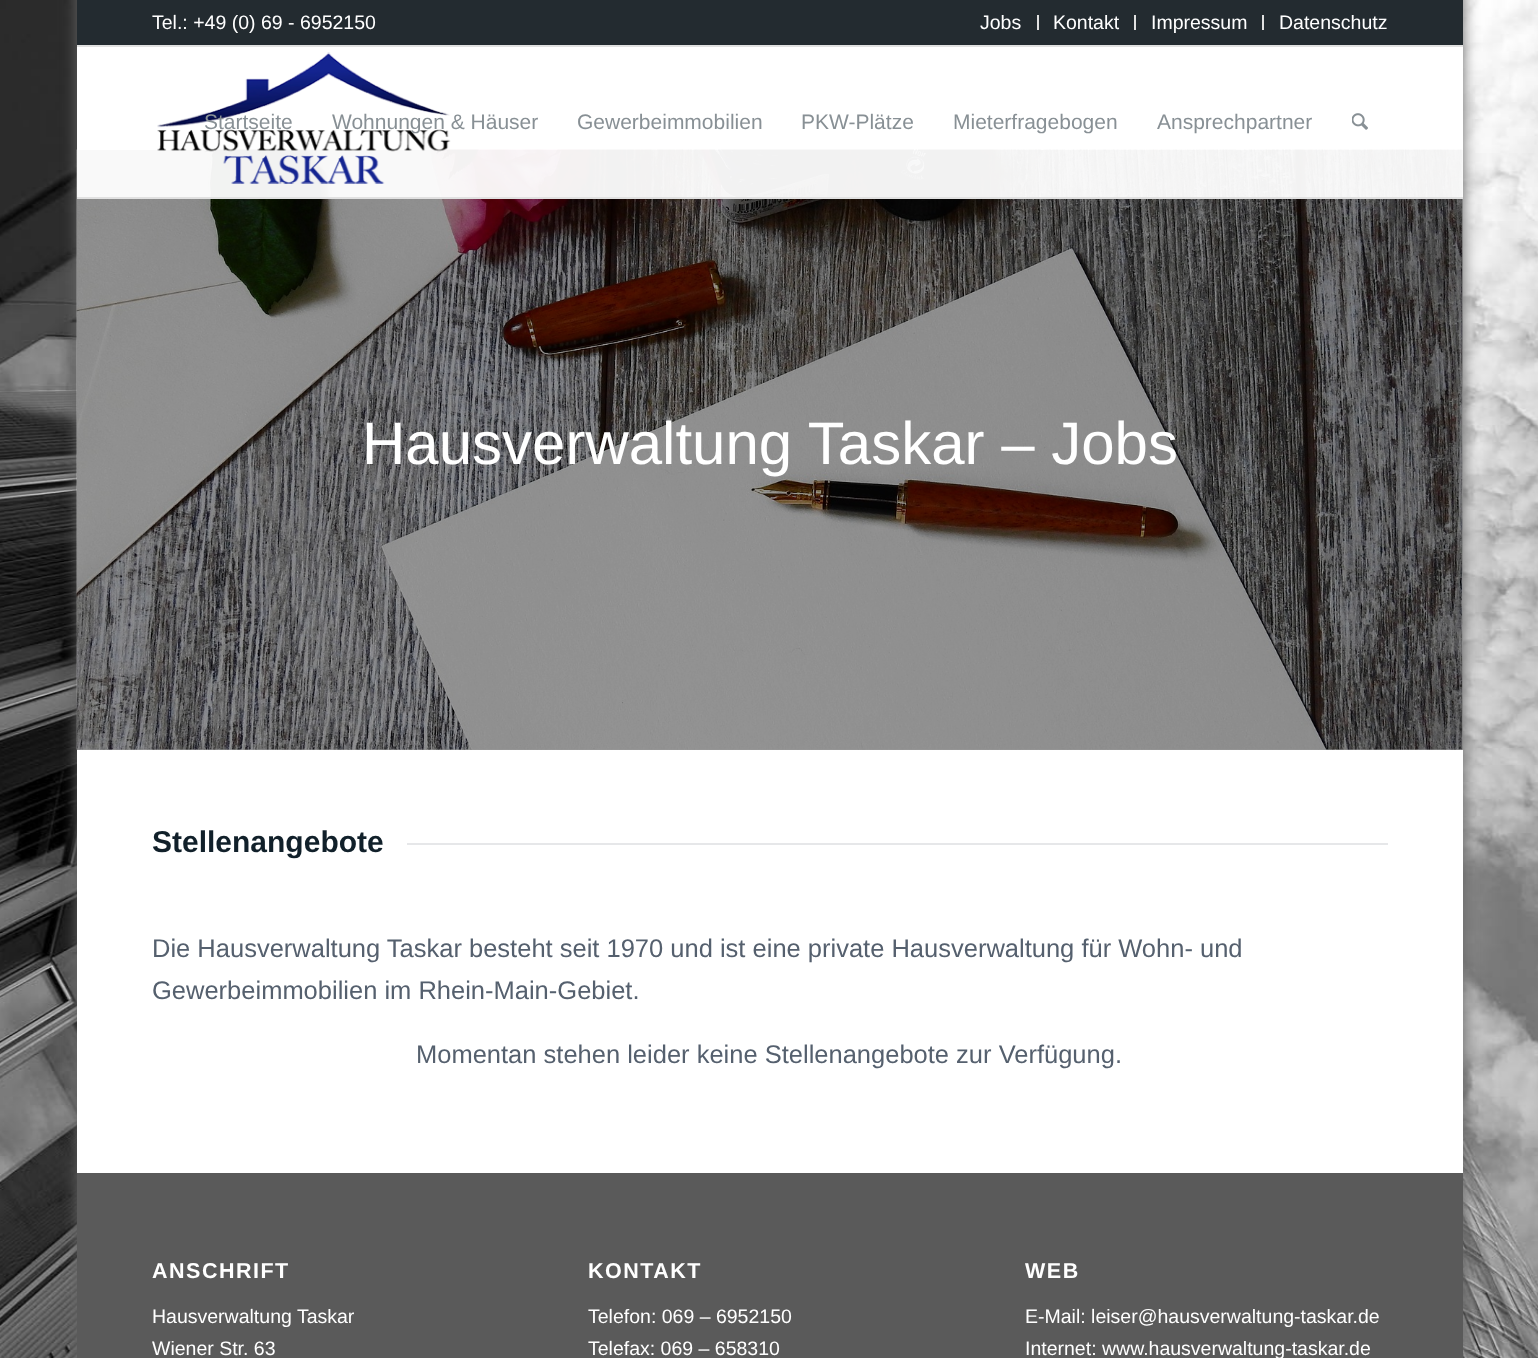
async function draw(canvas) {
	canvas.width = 1538;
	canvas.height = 1358;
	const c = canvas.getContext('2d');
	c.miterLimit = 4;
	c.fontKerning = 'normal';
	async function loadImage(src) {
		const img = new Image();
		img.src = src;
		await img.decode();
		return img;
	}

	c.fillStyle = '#fff';
	c.fillRect(0, 0, 1538, 1358);
	c.drawImage(await loadImage('img1.png'), 0, 0, 1538, 1358);
	c.fillStyle = '#666';
	c.filter = 'blur(7.5px)';
	c.beginPath();
	c.rect(77, -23, 1386, 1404);
	c.fill();
	c.filter = 'none';
	c.fillStyle = '#232b30';
	c.fillRect(77, 0, 1386, 45);
	c.fillStyle = '#e1e1e1';
	c.fillRect(77, 45, 1386, 2);
	c.font = '19.5px Liberation Sans';
	c.fillStyle = '#fff';
	c.fillText('Tel.: +49 (0) 69 - 6952150', 152, 29);
	c.fillStyle = '#e1e1e1';
	c.fillRect(1037, 15, 2, 15);
	c.fillStyle = '#fff';
	c.fillText('Jobs', 980, 29);
	c.fillStyle = '#e1e1e1';
	c.fillRect(1134, 15, 2, 15);
	c.fillStyle = '#fff';
	c.fillText('Kontakt', 1053, 29);
	c.fillStyle = '#e1e1e1';
	c.fillRect(1262, 15, 2, 15);
	c.fillStyle = '#fff';
	c.fillText('Impressum', 1151, 29);
	c.fillText('Datenschutz', 1279, 29);
	c.fillRect(77, 47, 1386, 1126);
	c.drawImage(await loadImage('img4.png'), 76, 149, 1387, 601);
	for (const [x, y, w, h, color] of [
		[77, 150, 1386, 600, '#00000066'],
		[77, 197, 1386, 2, '#e1e1e1'],
		[77, 149, 1386, 48, '#fffffff2'],
	]) {
		c.fillStyle = color;
		c.fillRect(x, y, w, h);
	}
	c.drawImage(await loadImage('img2.png'), 157, 52, 294, 132);
	c.font = '21px Liberation Sans';
	c.fillStyle = '#889095';
	for (const [text, x, y] of [
		['Startseite', 204, 129],
		['Wohnungen & Häuser', 332, 129],
		['Gewerbeimmobilien', 577, 129],
		['PKW-Plätze', 801, 129],
		['Mieterfragebogen', 953, 129],
		['Ansprechpartner', 1157, 129],
	]) {
		c.fillText(text, x, y);
	}
	c.drawImage(await loadImage('img3.png'), 1352, 113, 16, 17);
	c.font = '60px Liberation Sans';
	c.fillStyle = '#fff';
	c.fillText('Hausverwaltung Taskar – Jobs', 362, 464);
	c.font = 'bold 30px Liberation Sans';
	c.fillStyle = '#11202a';
	c.fillText('Stellenangebote', 152, 852);
	c.fillStyle = '#e6e7e9';
	c.fillRect(407, 843, 981, 2);
	c.font = '25.5px Liberation Sans';
	c.fillStyle = '#55606e';
	for (const [text, x, y] of [
		['Die Hausverwaltung Taskar besteht seit 1970 und ist eine private Hausverwaltung für Wohn- und', 152, 957],
		['Gewerbeimmobilien im Rhein-Main-Gebiet.', 152, 999],
		['Momentan stehen leider keine Stellenangebote zur Verfügung.', 416, 1063],
	]) {
		c.fillText(text, x, y);
	}
	c.fillStyle = '#5a5a5a';
	c.fillRect(77, 1173, 1386, 185);
	c.letterSpacing = '1.5px';
	c.font = 'bold 21.5px Liberation Sans';
	c.fillStyle = '#fff';
	c.fillText('ANSCHRIFT', 152, 1278);
	c.letterSpacing = '0px';
	c.font = '19.5px Liberation Sans';
	c.fillText('Hausverwaltung Taskar', 152, 1323);
	c.fillText('Wiener Str. 63', 152, 1355);
	c.letterSpacing = '1.5px';
	c.font = 'bold 21.5px Liberation Sans';
	c.fillText('KONTAKT', 588, 1278);
	c.letterSpacing = '0px';
	c.font = '19.5px Liberation Sans';
	c.fillText('Telefon: 069 – 6952150', 588, 1323);
	c.fillText('Telefax: 069 – 658310', 588, 1355);
	c.letterSpacing = '1.5px';
	c.font = 'bold 21.5px Liberation Sans';
	c.fillText('WEB', 1025, 1278);
	c.letterSpacing = '0px';
	c.font = '19.5px Liberation Sans';
	c.fillText('E-Mail: leiser@hausverwaltung-taskar.de', 1025, 1323);
	c.fillText('Internet: www.hausverwaltung-taskar.de', 1025, 1355);
}

draw(document.querySelector('canvas'));
